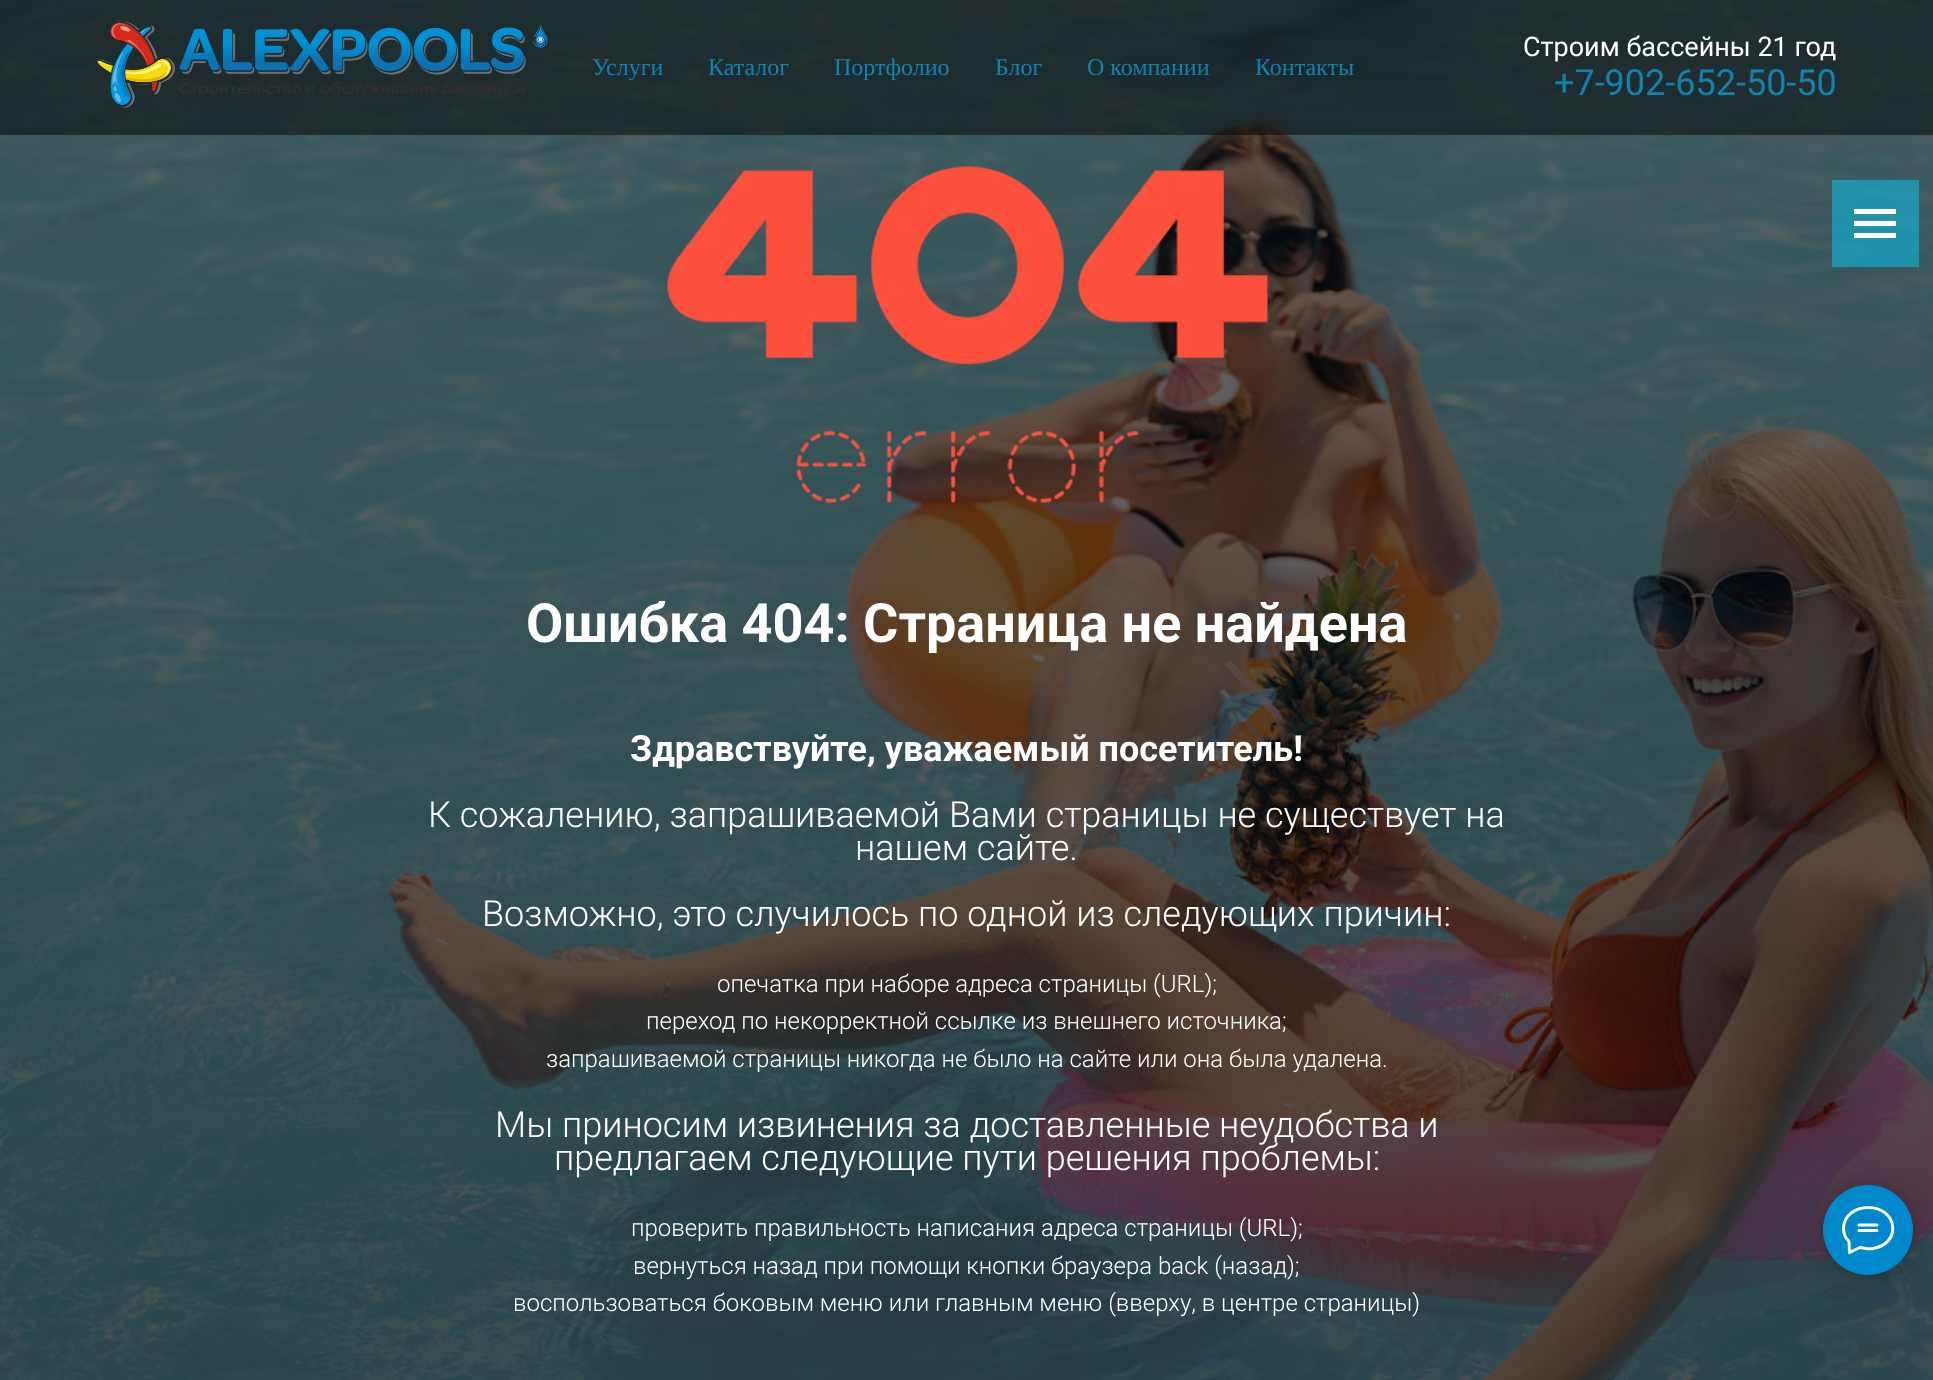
async function draw(canvas) {
	canvas.width = 1933;
	canvas.height = 1380;
	const c = canvas.getContext('2d');
	c.miterLimit = 4;
	c.fontKerning = 'normal';
	async function loadImage(src) {
		const img = new Image();
		img.src = src;
		await img.decode();
		return img;
	}

	c.fillStyle = '#fff';
	c.fillRect(0, 0, 1933, 1380);
	c.drawImage(await loadImage('img2.png'), 0, 0, 1933, 1380);
	c.fillStyle = '#00000080';
	c.fillRect(0, 0, 1933, 135);
	c.drawImage(await loadImage('img1.png'), 97, 21, 451, 87);
	c.font = '24px Liberation Serif';
	c.fillStyle = '#1084b1';
	for (const [text, x, y] of [
		['Услуги', 592, 75],
		['Каталог', 708, 75],
		['Портфолио', 834, 75],
		['Блог', 995, 75],
		['О компании', 1087, 75],
		['Контакты', 1255, 75],
	]) {
		c.fillText(text, x, y);
	}
	c.font = '27px Roboto';
	c.fillStyle = '#fff';
	c.fillText('Строим бассейны 21 год', 1523, 56);
	c.font = '36px Roboto';
	c.fillStyle = '#1084b1';
	c.fillText('+7-902-652-50-50', 1554, 95);
	for (const [x, y, w, h, color] of [
		[1832, 180, 87, 87, '#05c9fa80'],
		[1854, 209, 42, 5, '#fff'],
		[1854, 221, 42, 5, '#fff'],
		[1854, 233, 42, 5, '#fff'],
	]) {
		c.fillStyle = color;
		c.fillRect(x, y, w, h);
	}
	c.drawImage(await loadImage('img3.png'), 667, 166, 601, 337);
	c.font = 'bold 54px Roboto';
	c.fillText('Ошибка 404: Страница не найдена', 526, 642);
	c.font = 'bold 36px Roboto';
	c.fillText('Здравствуйте, уважаемый посетитель!', 630, 761);
	c.font = '300 36px Roboto';
	for (const [text, x, y] of [
		['К сожалению, запрашиваемой Вами страницы не существует на', 428, 827],
		['нашем сайте.', 855, 860],
		['Возможно, это случилось по одной из следующих причин:', 482, 926],
	]) {
		c.fillText(text, x, y);
	}
	c.font = '300 24px Roboto';
	for (const [text, x, y] of [
		['опечатка при наборе адреса страницы (URL);', 717, 992],
		['переход по некорректной ссылке из внешнего источника;', 646, 1029],
		['запрашиваемой страницы никогда не было на сайте или она была удалена.', 546, 1067],
	]) {
		c.fillText(text, x, y);
	}
	c.font = '300 36px Roboto';
	c.fillText('Мы приносим извинения за доставленные неудобства и', 495, 1137);
	c.fillText('предлагаем следующие пути решения проблемы:', 554, 1170);
	c.font = '300 24px Roboto';
	for (const [text, x, y] of [
		['проверить правильность написания адреса страницы (URL);', 631, 1236],
		['вернуться назад при помощи кнопки браузера back (назад);', 633, 1274],
		['воспользоваться боковым меню или главным меню (вверху, в центре страницы)', 513, 1311],
	]) {
		c.fillText(text, x, y);
	}
	c.fillStyle = '#0000004d';
	c.filter = 'blur(15px)';
	c.beginPath();
	c.roundRect(1823, 1185, 90, 90, 45);
	c.fill();
	c.filter = 'none';
	c.fillStyle = '#08c';
	c.beginPath();
	c.arc(1868, 1230, 45, 0, 2 * Math.PI);
	c.fill();
	c.beginPath();
	c.moveTo(1859, 1225);
	c.lineTo(1877, 1225);
	c.moveTo(1859, 1230.5);
	c.lineTo(1877, 1230.5);
	c.moveTo(1849, 1241.5);
	c.bezierCurveTo(1841, 1233.5, 1842, 1221, 1850.5, 1213.5);
	c.bezierCurveTo(1855.5, 1209.5, 1862, 1207.5, 1868, 1207.5);
	c.bezierCurveTo(1897.5, 1207.5, 1902.5, 1243.5, 1873, 1248.5);
	c.bezierCurveTo(1868, 1249.5, 1865, 1248, 1860, 1247.5);
	c.lineTo(1849.5, 1252.5);
	c.closePath();
	c.strokeStyle = '#fff';
	c.lineWidth = 3;
	c.lineCap = 'round';
	c.lineJoin = 'round';
	c.stroke();
}

draw(document.querySelector('canvas'));
